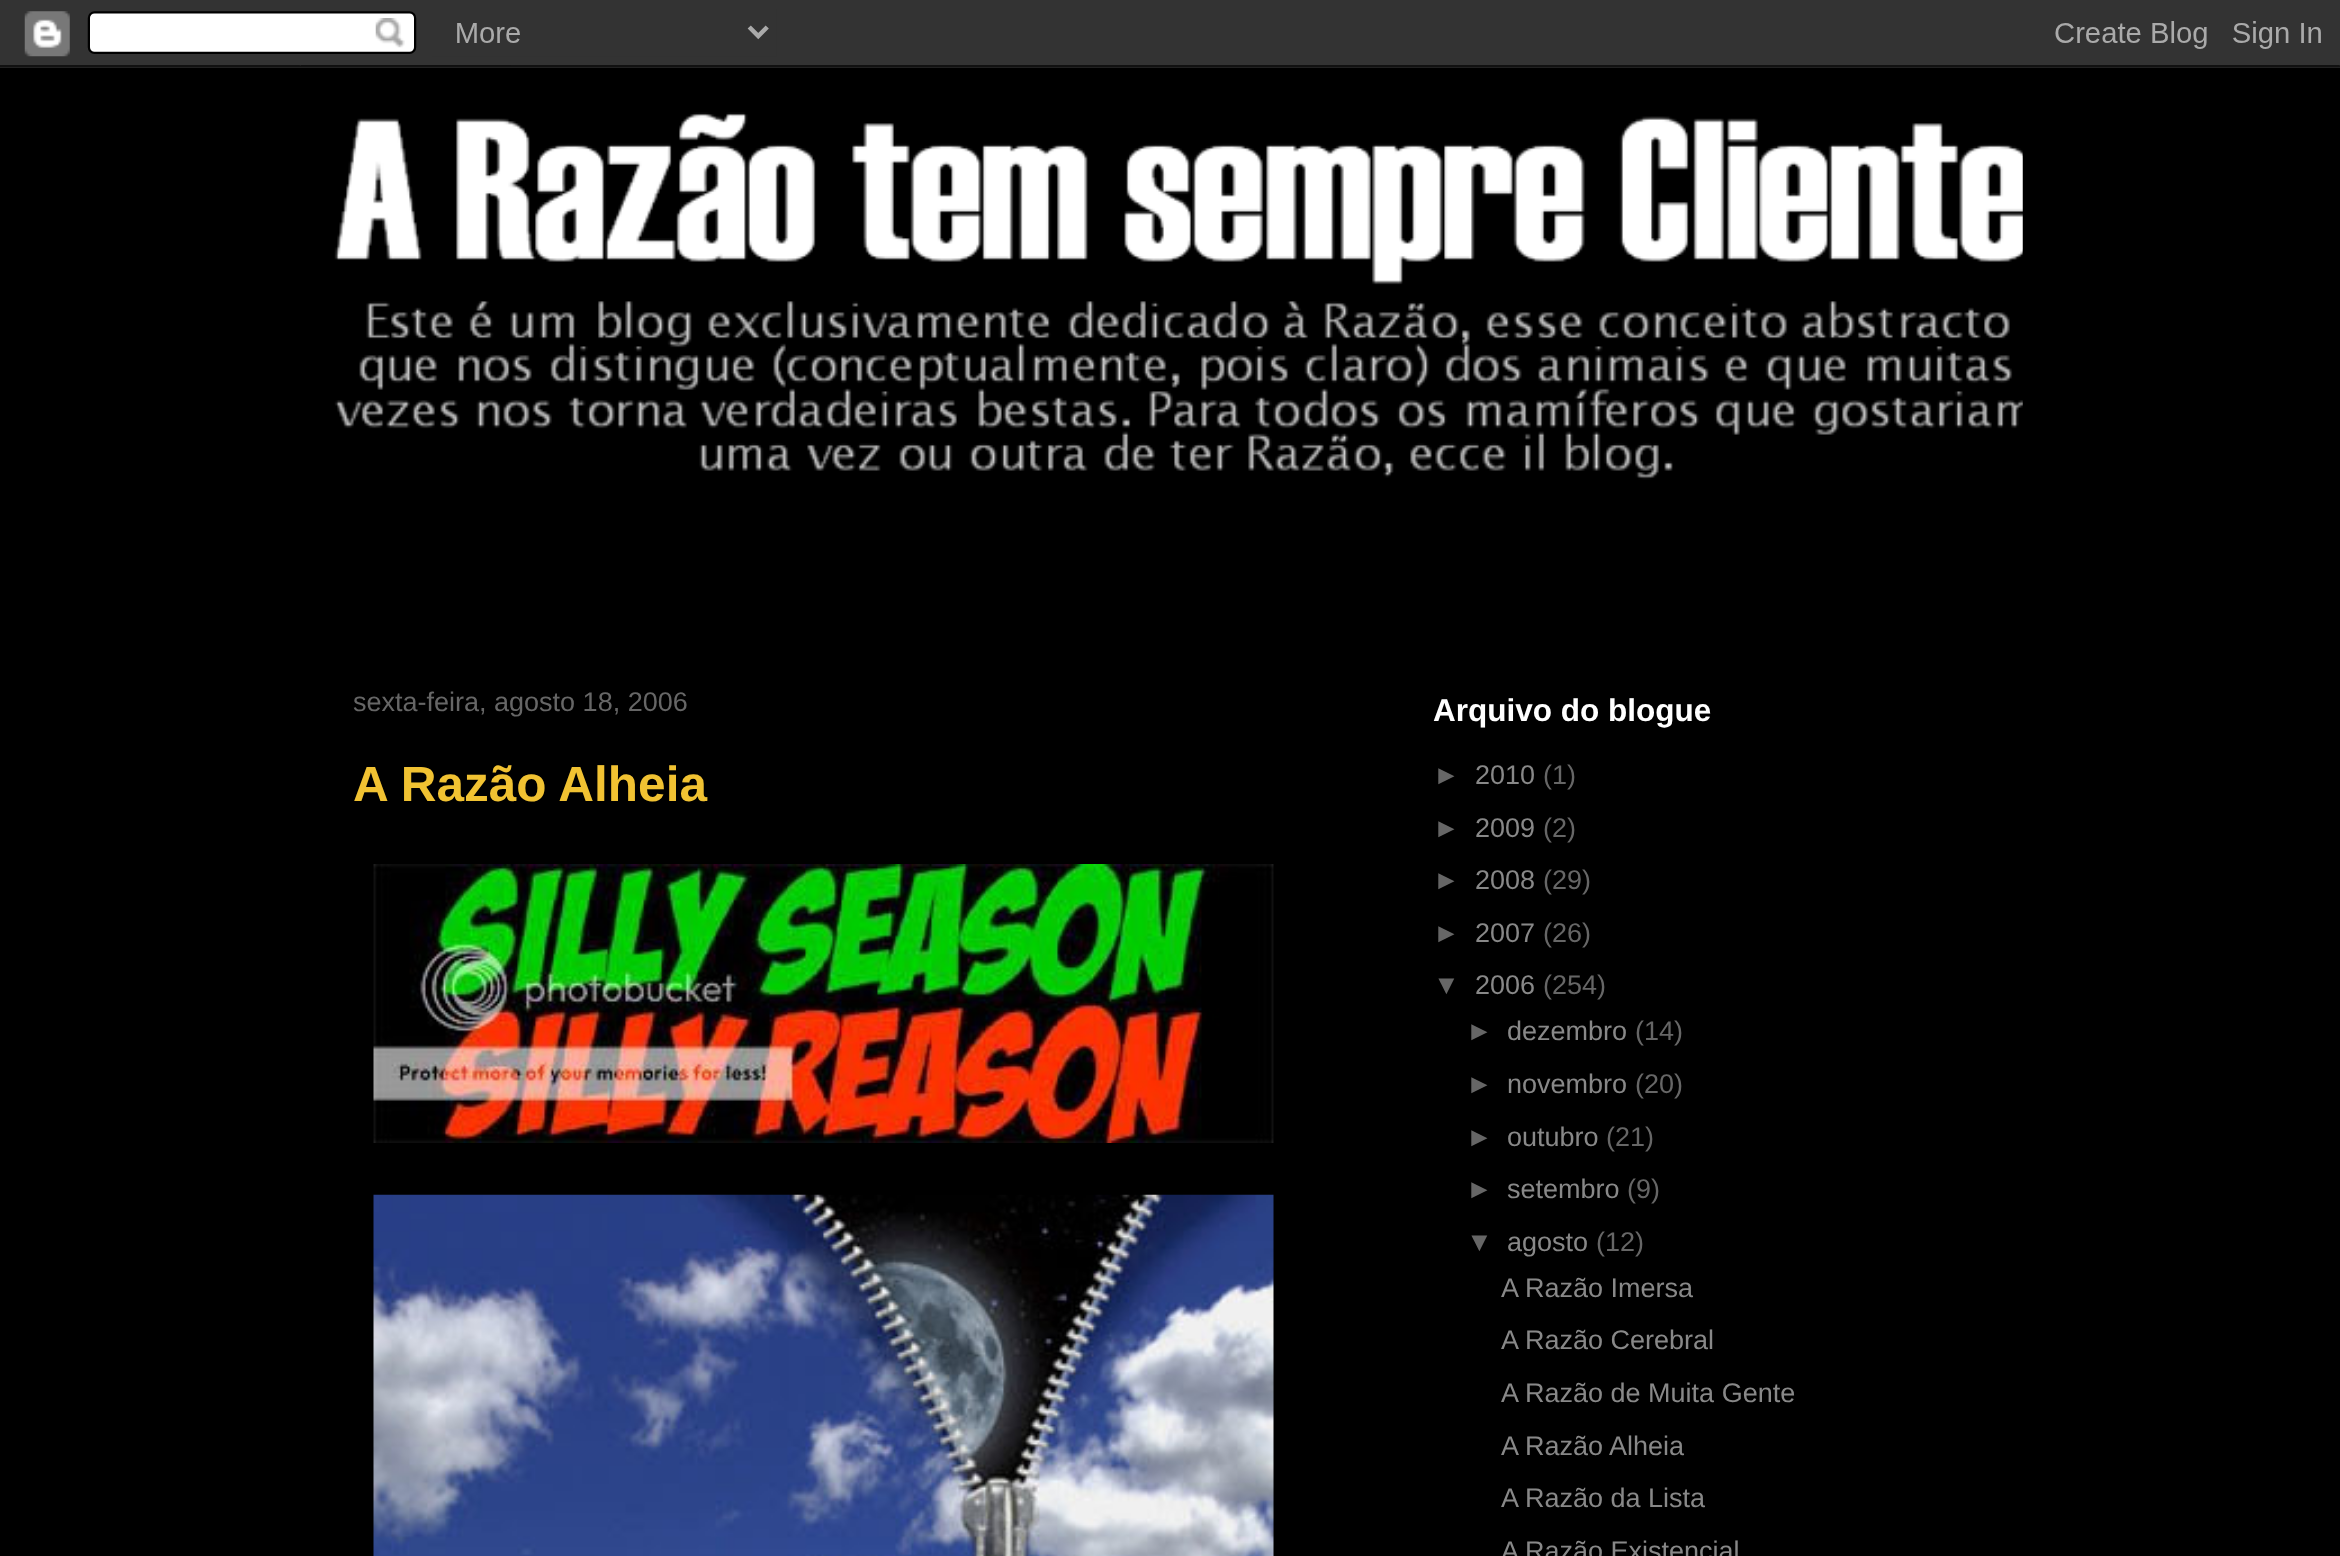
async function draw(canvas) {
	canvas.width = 2340;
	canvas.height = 1556;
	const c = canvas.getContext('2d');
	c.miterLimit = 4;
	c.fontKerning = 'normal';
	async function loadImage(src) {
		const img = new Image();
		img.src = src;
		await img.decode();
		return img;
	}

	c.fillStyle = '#000';
	c.fillRect(0, 0, 2340, 1556);
	c.drawImage(await loadImage('img1.png'), 0, 0, 2340, 68);
	c.drawImage(await loadImage('img2.png'), 334, 112, 1689, 368);
	c.font = '27px Liberation Sans';
	c.fillStyle = '#666';
	c.fillText('sexta-feira, agosto 18, 2006', 353, 711);
	c.font = 'bold 49.5px Liberation Sans';
	c.fillStyle = '#f1c232';
	c.fillText('A Razão Alheia', 353, 801);
	c.drawImage(await loadImage('img3.png'), 373, 864, 901, 279);
	c.drawImage(await loadImage('img4.png'), 373, 1194, 901, 362);
	c.font = 'bold 31.5px Liberation Sans';
	c.fillStyle = '#fff';
	c.fillText('Arquivo do blogue', 1433, 721);
	c.font = '27px Liberation Sans';
	c.fillStyle = '#666';
	c.fillText('►', 1433, 784);
	c.fillStyle = '#888';
	c.fillText('2010', 1475, 784);
	c.fillStyle = '#666';
	c.fillText('(1)', 1543, 784);
	c.fillText('►', 1433, 837);
	c.fillStyle = '#888';
	c.fillText('2009', 1475, 837);
	c.fillStyle = '#666';
	c.fillText('(2)', 1543, 837);
	c.fillText('►', 1433, 889);
	c.fillStyle = '#888';
	c.fillText('2008', 1475, 889);
	c.fillStyle = '#666';
	c.fillText('(29)', 1543, 889);
	c.fillText('►', 1433, 942);
	c.fillStyle = '#888';
	c.fillText('2007', 1475, 942);
	c.fillStyle = '#666';
	c.fillText('(26)', 1543, 942);
	c.fillText('▼', 1433, 994);
	c.fillStyle = '#888';
	c.fillText('2006', 1475, 994);
	c.fillStyle = '#666';
	c.fillText('(254)', 1543, 994);
	c.fillText('►', 1466, 1040);
	c.fillStyle = '#888';
	c.fillText('dezembro', 1507, 1040);
	c.fillStyle = '#666';
	c.fillText('(14)', 1635, 1040);
	c.fillText('►', 1466, 1093);
	c.fillStyle = '#888';
	c.fillText('novembro', 1507, 1093);
	c.fillStyle = '#666';
	c.fillText('(20)', 1635, 1093);
	c.fillText('►', 1466, 1146);
	c.fillStyle = '#888';
	c.fillText('outubro', 1507, 1146);
	c.fillStyle = '#666';
	c.fillText('(21)', 1606, 1146);
	c.fillText('►', 1466, 1198);
	c.fillStyle = '#888';
	c.fillText('setembro', 1507, 1198);
	c.fillStyle = '#666';
	c.fillText('(9)', 1627, 1198);
	c.fillText('▼', 1466, 1251);
	c.fillStyle = '#888';
	c.fillText('agosto', 1507, 1251);
	c.fillStyle = '#666';
	c.fillText('(12)', 1596, 1251);
	c.fillStyle = '#888';
	for (const [text, x, y] of [
		['A Razão Imersa', 1501, 1297],
		['A Razão Cerebral', 1501, 1349],
		['A Razão de Muita Gente', 1501, 1402],
		['A Razão Alheia', 1501, 1455],
		['A Razão da Lista', 1501, 1507],
		['A Razão Existencial', 1501, 1560],
	]) {
		c.fillText(text, x, y);
	}
}

draw(document.querySelector('canvas'));
